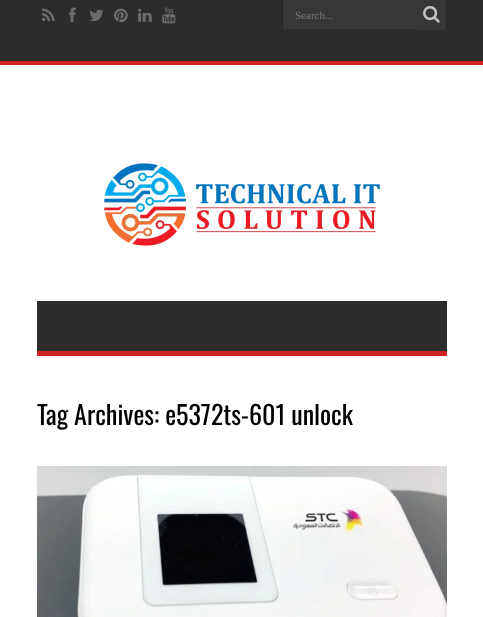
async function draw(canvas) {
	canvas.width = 483;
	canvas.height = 617;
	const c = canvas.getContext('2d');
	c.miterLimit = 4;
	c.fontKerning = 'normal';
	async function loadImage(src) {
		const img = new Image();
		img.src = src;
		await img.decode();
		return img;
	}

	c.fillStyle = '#fff';
	c.fillRect(0, 0, 483, 617);
	c.fillStyle = '#2c2c2c';
	c.fillRect(0, 0, 483, 61);
	c.fillStyle = '#cd2122';
	c.fillRect(0, 61, 483, 4);
	c.drawImage(await loadImage('img1.png'), 42, 8, 13, 14);
	c.drawImage(await loadImage('img2.png'), 69, 7, 7, 16);
	c.drawImage(await loadImage('img3.png'), 89, 9, 15, 13);
	c.drawImage(await loadImage('img4.png'), 114, 8, 14, 15);
	c.drawImage(await loadImage('img5.png'), 138, 8, 14, 14);
	c.drawImage(await loadImage('img6.png'), 162, 7, 14, 17);
	c.fillStyle = '#373737';
	c.fillRect(283, 0, 134, 29);
	c.fillStyle = '#252525';
	c.fillRect(282, 0, 1, 29);
	c.font = '11px Liberation Serif';
	c.fillStyle = '#787878';
	c.fillText('Search...', 295, 19);
	c.fillStyle = '#373737';
	c.fillRect(417, 0, 29, 30);
	c.fillStyle = '#252525';
	c.fillRect(446, 0, 1, 30);
	c.drawImage(await loadImage('img7.png'), 423, 6, 17, 17);
	c.drawImage(await loadImage('img8.png'), 104, 163, 276, 83);
	c.fillStyle = '#2c2c2c';
	c.fillRect(37, 301, 410, 50);
	c.fillStyle = '#cd2122';
	c.fillRect(37, 351, 410, 5);
	c.font = '26px Oswald';
	c.fillStyle = '#000';
	c.fillText('Tag Archives: e5372ts-601 unlock', 37, 425);
	c.drawImage(await loadImage('img9.png'), 37, 466, 410, 151);
}

draw(document.querySelector('canvas'));
